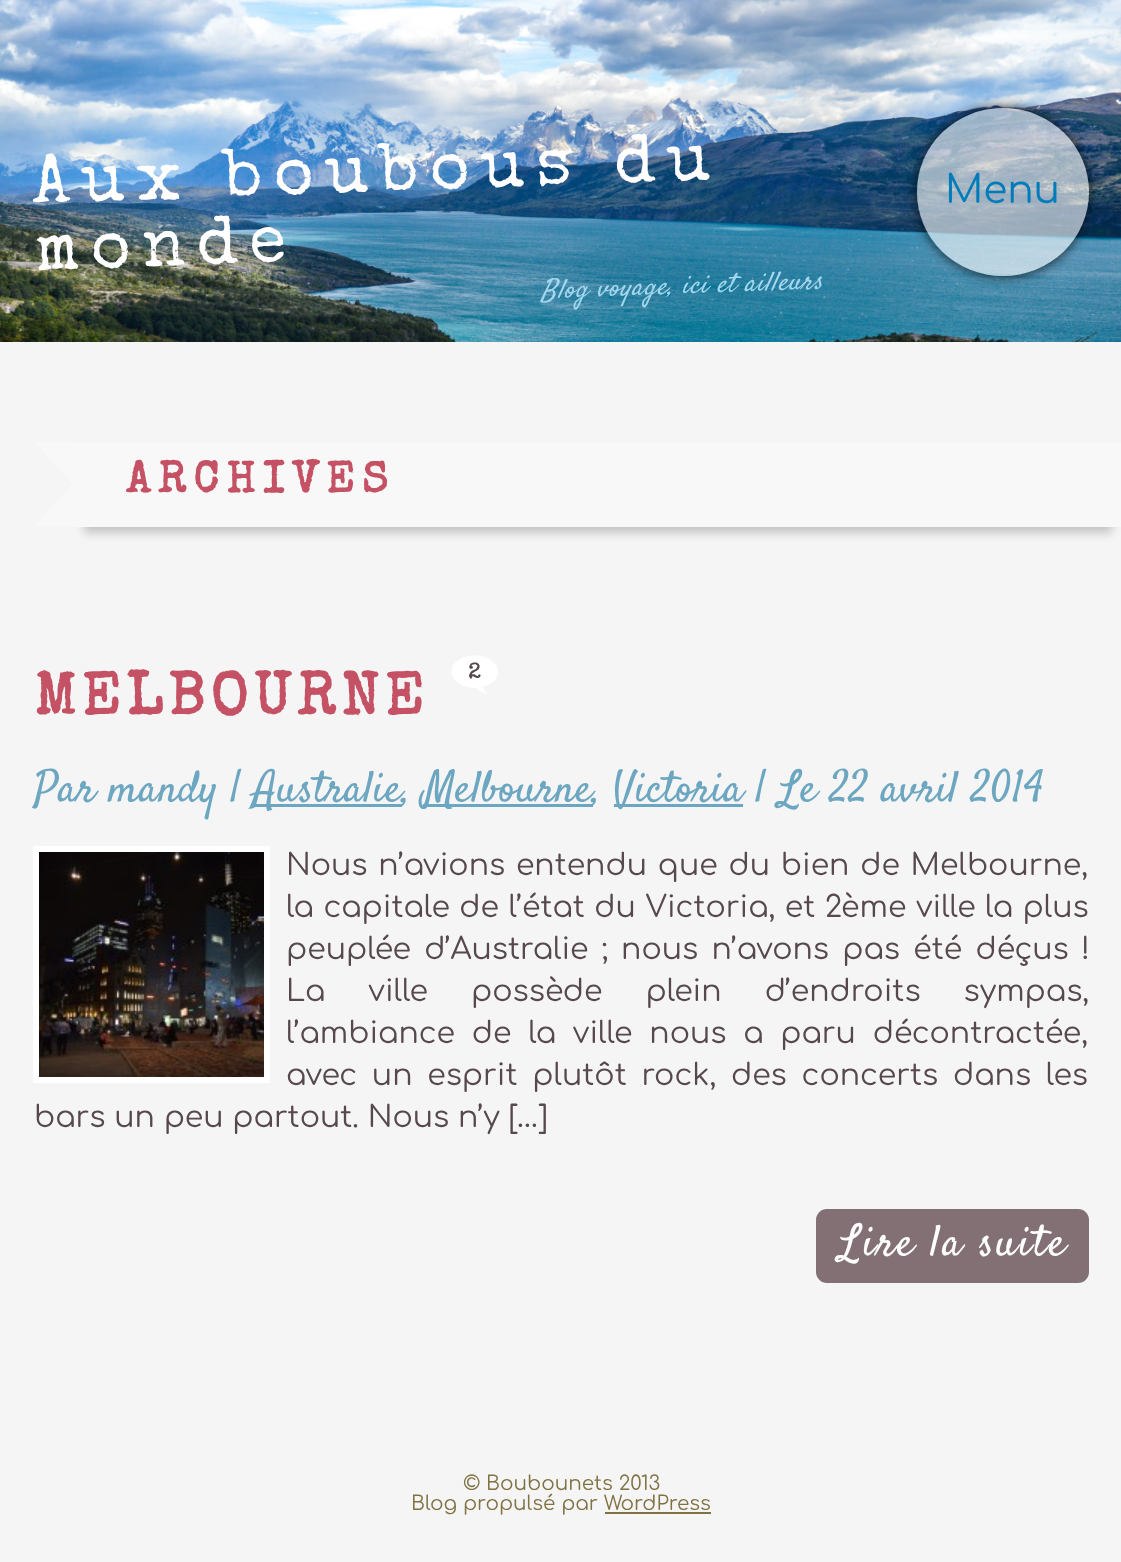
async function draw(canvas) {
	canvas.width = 1121;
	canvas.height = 1562;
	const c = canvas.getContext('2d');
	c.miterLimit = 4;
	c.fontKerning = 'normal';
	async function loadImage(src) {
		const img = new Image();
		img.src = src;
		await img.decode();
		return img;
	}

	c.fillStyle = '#f5f5f5';
	c.fillRect(0, 0, 1121, 1562);
	c.drawImage(await loadImage('img1.png'), 0, 0, 1121, 342);
	c.letterSpacing = '11.5px';
	c.font = '68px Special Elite';
	c.fillStyle = '#fefefe';
	c.save();
	c.translate(33, 202);
	c.rotate(-2 * Math.PI / 180);
	c.fillText('Aux boubous du', 0, 0);
	c.restore();
	c.save();
	c.translate(35, 269);
	c.rotate(-2 * Math.PI / 180);
	c.fillText('monde', 0, 0);
	c.restore();
	c.letterSpacing = '0.8px';
	c.font = 'italic 26.5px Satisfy';
	c.fillStyle = '#a3d7ee';
	c.save();
	c.translate(541, 298);
	c.rotate(-2 * Math.PI / 180);
	c.fillText('Blog voyage, ici et ailleurs', 0, 0);
	c.restore();
	c.save();
	c.beginPath();
	c.moveTo(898, 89);
	c.lineTo(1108, 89);
	c.lineTo(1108, 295);
	c.lineTo(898, 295);
	c.closePath();
	c.moveTo(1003, 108);
	c.bezierCurveTo(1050.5, 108, 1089, 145.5, 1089, 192);
	c.bezierCurveTo(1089, 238.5, 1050.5, 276, 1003, 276);
	c.bezierCurveTo(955, 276, 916.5, 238.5, 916.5, 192);
	c.bezierCurveTo(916.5, 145.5, 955, 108, 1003, 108);
	c.closePath();
	c.clip('evenodd');
	c.fillStyle = '#000000cc';
	c.filter = 'blur(6px)';
	c.beginPath();
	c.roundRect(917, 108, 172, 168, 84);
	c.fill();
	c.filter = 'none';
	c.restore();
	c.fillStyle = '#ffffff99';
	c.beginPath();
	c.ellipse(1003, 192, 86, 84, 0, 0, 2 * Math.PI);
	c.fill();
	c.letterSpacing = '0px';
	c.font = '39px Comfortaa';
	c.fillStyle = '#007cba';
	c.fillText('Menu', 945, 203);
	c.save();
	c.beginPath();
	c.moveTo(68, 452);
	c.lineTo(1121, 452);
	c.lineTo(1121, 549);
	c.lineTo(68, 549);
	c.closePath();
	c.moveTo(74, 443);
	c.lineTo(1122, 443);
	c.lineTo(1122, 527);
	c.lineTo(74, 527);
	c.closePath();
	c.clip('evenodd');
	c.fillStyle = '#00000033';
	c.filter = 'blur(5px)';
	c.beginPath();
	c.rect(84, 468, 1028, 65);
	c.fill();
	c.filter = 'none';
	c.restore();
	c.fillStyle = '#ffffff4d';
	c.fillRect(74, 443, 1047, 84);
	c.fillStyle = '#f8f8f8';
	c.beginPath();
	c.moveTo(74, 442);
	c.lineTo(74, 486);
	c.lineTo(34, 442);
	c.closePath();
	c.fill();
	c.letterSpacing = '7.5px';
	c.font = 'bold 44px Special Elite';
	c.fillStyle = '#c45164';
	c.fillText('ARCHIVES', 126, 492);
	c.fillStyle = '#ffffff4d';
	c.beginPath();
	c.moveTo(74, 483);
	c.lineTo(74, 526);
	c.lineTo(34, 526);
	c.closePath();
	c.fill();
	c.letterSpacing = '6px';
	c.font = 'bold 60px Special Elite';
	c.fillStyle = '#c45164';
	c.fillText('MELBOURNE', 34, 714);
	c.drawImage(await loadImage('img2.png'), 451, 655, 47, 39);
	c.letterSpacing = '2px';
	c.font = 'bold 22px Special Elite';
	c.fillStyle = '#56484b';
	c.fillText('2', 468, 678);
	c.letterSpacing = '0px';
	c.font = '44px Satisfy';
	c.fillStyle = '#6ca6c0';
	c.fillText('Par mandy |', 34, 801);
	c.fillRect(254, 804, 148, 3);
	c.fillText('Australie,', 253, 801);
	c.fillRect(423, 804, 170, 3);
	c.fillText('Melbourne,', 423, 801);
	c.fillRect(614, 804, 129, 3);
	c.fillText('Victoria | Le 22 avril 2014', 613, 801);
	c.strokeStyle = '#fff';
	c.lineWidth = 6;
	c.strokeRect(36, 849, 231, 231);
	c.drawImage(await loadImage('img3.png'), 39, 852, 225, 225);
	c.wordSpacing = '2px';
	c.font = '30px Comfortaa';
	c.fillStyle = '#56484b';
	c.fillText('Nous n’avions entendu que du bien de Melbourne,', 286, 875);
	c.wordSpacing = '0.75px';
	c.fillText('la capitale de l’état du Victoria, et 2ème ville la plus', 286, 917);
	c.wordSpacing = '4.5px';
	c.fillText('peuplée d’Australie ; nous n’avons pas été déçus !', 286, 959);
	c.wordSpacing = '34.25px';
	c.fillText('La ville possède plein d’endroits sympas,', 286, 1001);
	c.wordSpacing = '8px';
	c.fillText('l’ambiance de la ville nous a paru décontractée,', 286, 1043);
	c.wordSpacing = '6px';
	c.fillText('avec un esprit plutôt rock, des concerts dans les', 286, 1085);
	c.wordSpacing = '0px';
	c.fillText('bars un peu partout. Nous n’y […]', 34, 1127);
	c.fillStyle = '#827074';
	c.beginPath();
	c.roundRect(816, 1209, 273, 74, 11);
	c.fill();
	c.letterSpacing = '2.25px';
	c.font = '44px Satisfy';
	c.fillStyle = '#fefefe';
	c.fillText('Lire la suite', 839, 1255);
	c.letterSpacing = '0px';
	c.font = '20px Comfortaa';
	c.fillStyle = '#817244';
	c.fillText('© Boubounets 2013', 463, 1490);
	c.fillText('Blog propulsé par WordPress', 411, 1510);
	c.fillRect(605, 1512, 106, 2);
}

draw(document.querySelector('canvas'));
